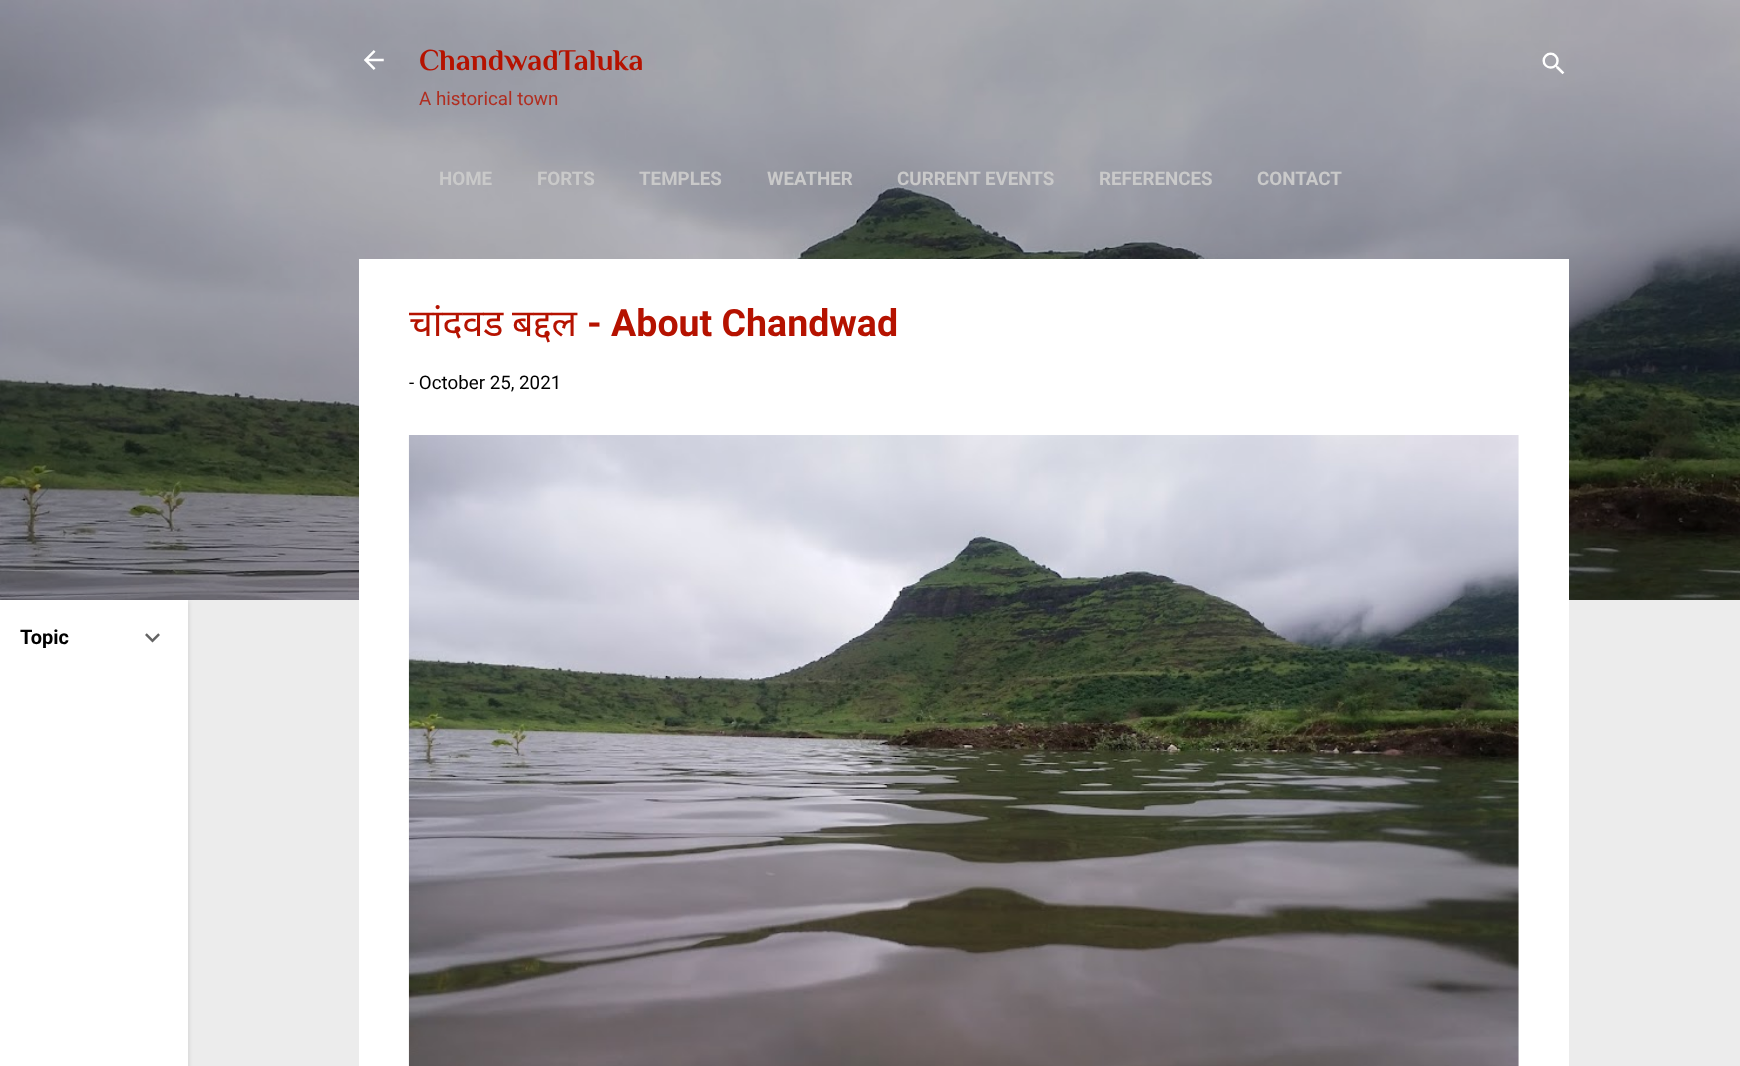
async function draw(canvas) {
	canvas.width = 1740;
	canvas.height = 1066;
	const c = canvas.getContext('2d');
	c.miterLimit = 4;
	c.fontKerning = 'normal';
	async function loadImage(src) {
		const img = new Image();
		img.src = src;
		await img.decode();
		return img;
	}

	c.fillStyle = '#ececec';
	c.fillRect(0, 0, 1740, 1066);
	c.drawImage(await loadImage('img1.png'), 0, 0, 1740, 600);
	c.drawImage(await loadImage('img2.png'), 364, 50, 20, 20);
	c.font = 'bold 30px Philosopher';
	c.fillStyle = '#b51200';
	c.fillText('ChandwadTaluka', 419, 70);
	c.font = '18.75px Roboto';
	c.fillStyle = '#b02e21';
	c.fillText('A historical town', 419, 105);
	c.font = 'bold 18.75px Roboto';
	c.fillStyle = '#c9c9c9';
	for (const [text, x, y] of [
		['HOME', 439, 185],
		['FORTS', 537, 185],
		['TEMPLES', 639, 185],
		['WEATHER', 767, 185],
		['CURRENT EVENTS', 897, 185],
		['REFERENCES', 1099, 185],
		['CONTACT', 1257, 185],
	]) {
		c.fillText(text, x, y);
	}
	c.drawImage(await loadImage('img3.png'), 1542, 52, 23, 23);
	c.fillStyle = '#fff';
	c.fillRect(359, 259, 1210, 807);
	c.font = '37.5px Noto Sans';
	c.fillStyle = '#b51200';
	c.fillText('चांदवड', 409, 336);
	c.fillText('बद्दल', 512, 336);
	c.font = 'bold 37.5px Roboto';
	c.fillText('- About Chandwad', 587, 336);
	c.font = '18.75px Roboto';
	c.fillStyle = '#000';
	c.fillText('- October 25, 2021', 409, 389);
	c.drawImage(await loadImage('img4.png'), 408, 435, 1111, 631);
	c.fillStyle = '#0000001a';
	c.filter = 'blur(2px)';
	c.beginPath();
	c.rect(1, 601, 188, 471);
	c.fill();
	c.filter = 'none';
	c.fillStyle = '#fff';
	c.fillRect(0, 600, 188, 466);
	c.font = 'bold 20px Roboto';
	c.fillStyle = '#000';
	c.fillText('Topic', 20, 644);
	c.drawImage(await loadImage('img5.png'), 145, 633, 15, 10);
}

draw(document.querySelector('canvas'));
